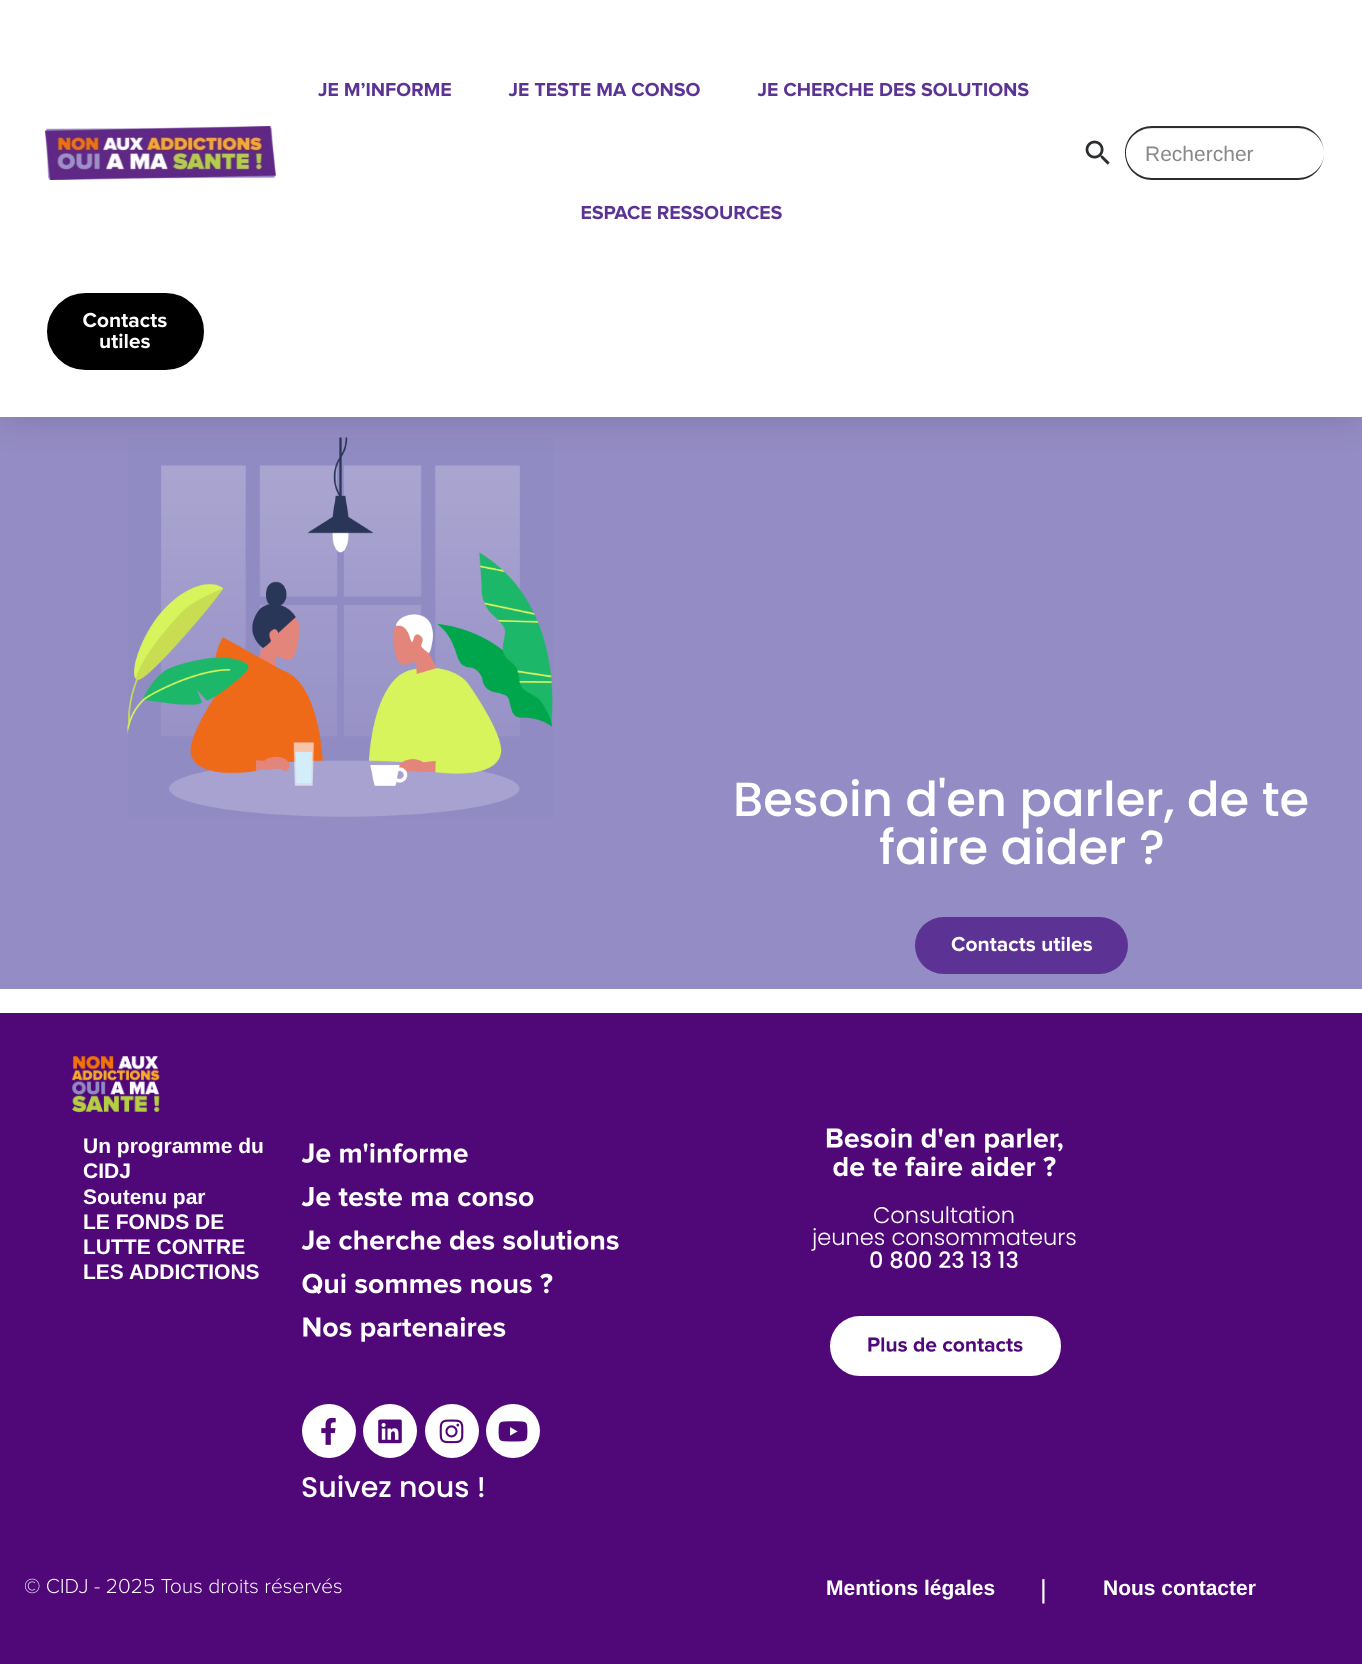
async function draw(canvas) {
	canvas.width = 1362;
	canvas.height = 1664;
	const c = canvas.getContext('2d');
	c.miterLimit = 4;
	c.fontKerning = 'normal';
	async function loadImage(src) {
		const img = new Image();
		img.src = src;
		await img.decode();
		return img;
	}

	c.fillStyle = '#fff';
	c.fillRect(0, 0, 1362, 1664);
	c.fillStyle = '#948cc4';
	c.fillRect(0, 417, 1362, 572);
	c.drawImage(await loadImage('img9.png'), 127, 437, 426, 380);
	c.fillStyle = '#00000026';
	c.filter = 'blur(18px)';
	c.beginPath();
	c.rect(0, 0, 1362, 417);
	c.fill();
	c.filter = 'none';
	c.fillStyle = '#fff';
	c.fillRect(0, 0, 1362, 417);
	c.drawImage(await loadImage('img1.png'), 45, 126, 231, 54);
	c.drawImage(await loadImage('img2.png'), 318, 82, 133, 15);
	c.drawImage(await loadImage('img3.png'), 508, 82, 192, 15);
	c.drawImage(await loadImage('img4.png'), 757, 82, 272, 15);
	c.drawImage(await loadImage('img5.png'), 581, 205, 201, 15);
	c.drawImage(await loadImage('img6.png'), 1085, 140, 25, 25);
	c.fillStyle = '#ececec';
	c.beginPath();
	c.moveTo(1152, 129);
	c.lineTo(1298, 129);
	c.bezierCurveTo(1312, 129, 1324, 140, 1324, 154);
	c.bezierCurveTo(1324, 157, 1324, 159, 1323, 162);
	c.bezierCurveTo(1324, 159, 1324, 156, 1324, 153);
	c.bezierCurveTo(1324, 139, 1312, 128, 1298, 128);
	c.lineTo(1152, 128);
	c.bezierCurveTo(1141, 128, 1131, 135, 1128, 145);
	c.bezierCurveTo(1132, 135, 1141, 129, 1152, 129);
	c.closePath();
	c.fill();
	c.fillStyle = '#2a2c2d';
	c.beginPath();
	c.moveTo(1152, 126);
	c.lineTo(1298, 126);
	c.bezierCurveTo(1312, 126, 1324, 138, 1324, 153);
	c.bezierCurveTo(1324, 168, 1312, 180, 1298, 180);
	c.lineTo(1152, 180);
	c.bezierCurveTo(1137, 180, 1125, 168, 1125, 153);
	c.bezierCurveTo(1125, 138, 1137, 126, 1152, 126);
	c.closePath();
	c.moveTo(1152, 128);
	c.lineTo(1298, 128);
	c.bezierCurveTo(1312, 128, 1324, 139, 1324, 153);
	c.bezierCurveTo(1324, 167, 1312, 178, 1298, 178);
	c.lineTo(1152, 178);
	c.bezierCurveTo(1138, 178, 1126, 167, 1126, 153);
	c.bezierCurveTo(1126, 139, 1138, 128, 1152, 128);
	c.closePath();
	c.fill('evenodd');
	c.font = '21px Liberation Sans';
	c.fillStyle = '#898989';
	c.fillText('Rechercher', 1145, 161);
	c.fillStyle = '#000';
	c.beginPath();
	c.roundRect(46, 292, 159, 79, 39.5);
	c.fill();
	c.strokeStyle = '#fff';
	c.lineWidth = 2;
	c.stroke();
	c.drawImage(await loadImage('img7.png'), 83, 312, 84, 16);
	c.drawImage(await loadImage('img8.png'), 100, 333, 50, 16);
	c.font = '500 48px Poppins';
	c.fillStyle = '#fff';
	c.fillText('Besoin d\'en parler, de te', 733, 816);
	c.fillText('faire aider ?', 879, 864);
	c.fillStyle = '#5c3394';
	c.beginPath();
	c.roundRect(915, 917, 213, 57, 28.5);
	c.fill();
	c.drawImage(await loadImage('img10.png'), 951, 936, 141, 16);
	c.fillStyle = '#500778';
	c.fillRect(0, 1013, 1362, 651);
	c.drawImage(await loadImage('img11.png'), 71, 1055, 89, 58);
	c.font = 'bold 21px Liberation Sans';
	c.fillStyle = '#fff';
	for (const [text, x, y] of [
		['Un programme du', 83, 1153],
		['CIDJ', 83, 1178],
		['Soutenu par', 83, 1204],
		['LE FONDS DE', 83, 1229],
		['LUTTE CONTRE', 83, 1254],
		['LES ADDICTIONS', 83, 1279],
	]) {
		c.fillText(text, x, y);
	}
	c.drawImage(await loadImage('img12.png'), 826, 1128, 237, 25);
	c.drawImage(await loadImage('img13.png'), 833, 1156, 223, 21);
	c.font = '300 22.5px Poppins';
	c.fillText('Consultation', 873, 1223);
	c.fillText('jeunes consommateurs', 812, 1245);
	c.font = '500 22.5px Poppins';
	c.fillText('0 800 23 13 13', 869, 1268);
	c.beginPath();
	c.roundRect(831, 1317, 229, 58, 29);
	c.fill();
	c.stroke();
	c.drawImage(await loadImage('img14.png'), 868, 1337, 155, 15);
	c.drawImage(await loadImage('img15.png'), 301, 1143, 167, 20);
	c.drawImage(await loadImage('img16.png'), 301, 1187, 233, 20);
	c.drawImage(await loadImage('img17.png'), 301, 1230, 318, 20);
	c.drawImage(await loadImage('img18.png'), 302, 1273, 251, 22);
	c.drawImage(await loadImage('img19.png'), 303, 1317, 203, 25);
	c.beginPath();
	c.arc(329, 1431, 27, 0, 2 * Math.PI);
	c.fill();
	c.drawImage(await loadImage('img20.png'), 321, 1417, 15, 28);
	c.beginPath();
	c.arc(390, 1431, 27, 0, 2 * Math.PI);
	c.fill();
	c.drawImage(await loadImage('img21.png'), 378, 1419, 24, 25);
	c.beginPath();
	c.arc(452, 1431, 27, 0, 2 * Math.PI);
	c.fill();
	c.drawImage(await loadImage('img22.png'), 439, 1419, 25, 25);
	c.beginPath();
	c.arc(513, 1431, 27, 0, 2 * Math.PI);
	c.fill();
	c.drawImage(await loadImage('img23.png'), 498, 1421, 30, 21);
	c.font = '500 28.5px Poppins';
	c.fillText('Suivez nous !', 301, 1497);
	c.drawImage(await loadImage('img24.png'), 24, 1578, 318, 16);
	c.font = 'bold 21px Liberation Sans';
	c.fillText('Mentions légales', 826, 1595);
	c.font = '26px Liberation Sans';
	c.fillText('|', 1040, 1598);
	c.font = 'bold 21px Liberation Sans';
	c.fillText('Nous contacter', 1103, 1595);
}

draw(document.querySelector('canvas'));
